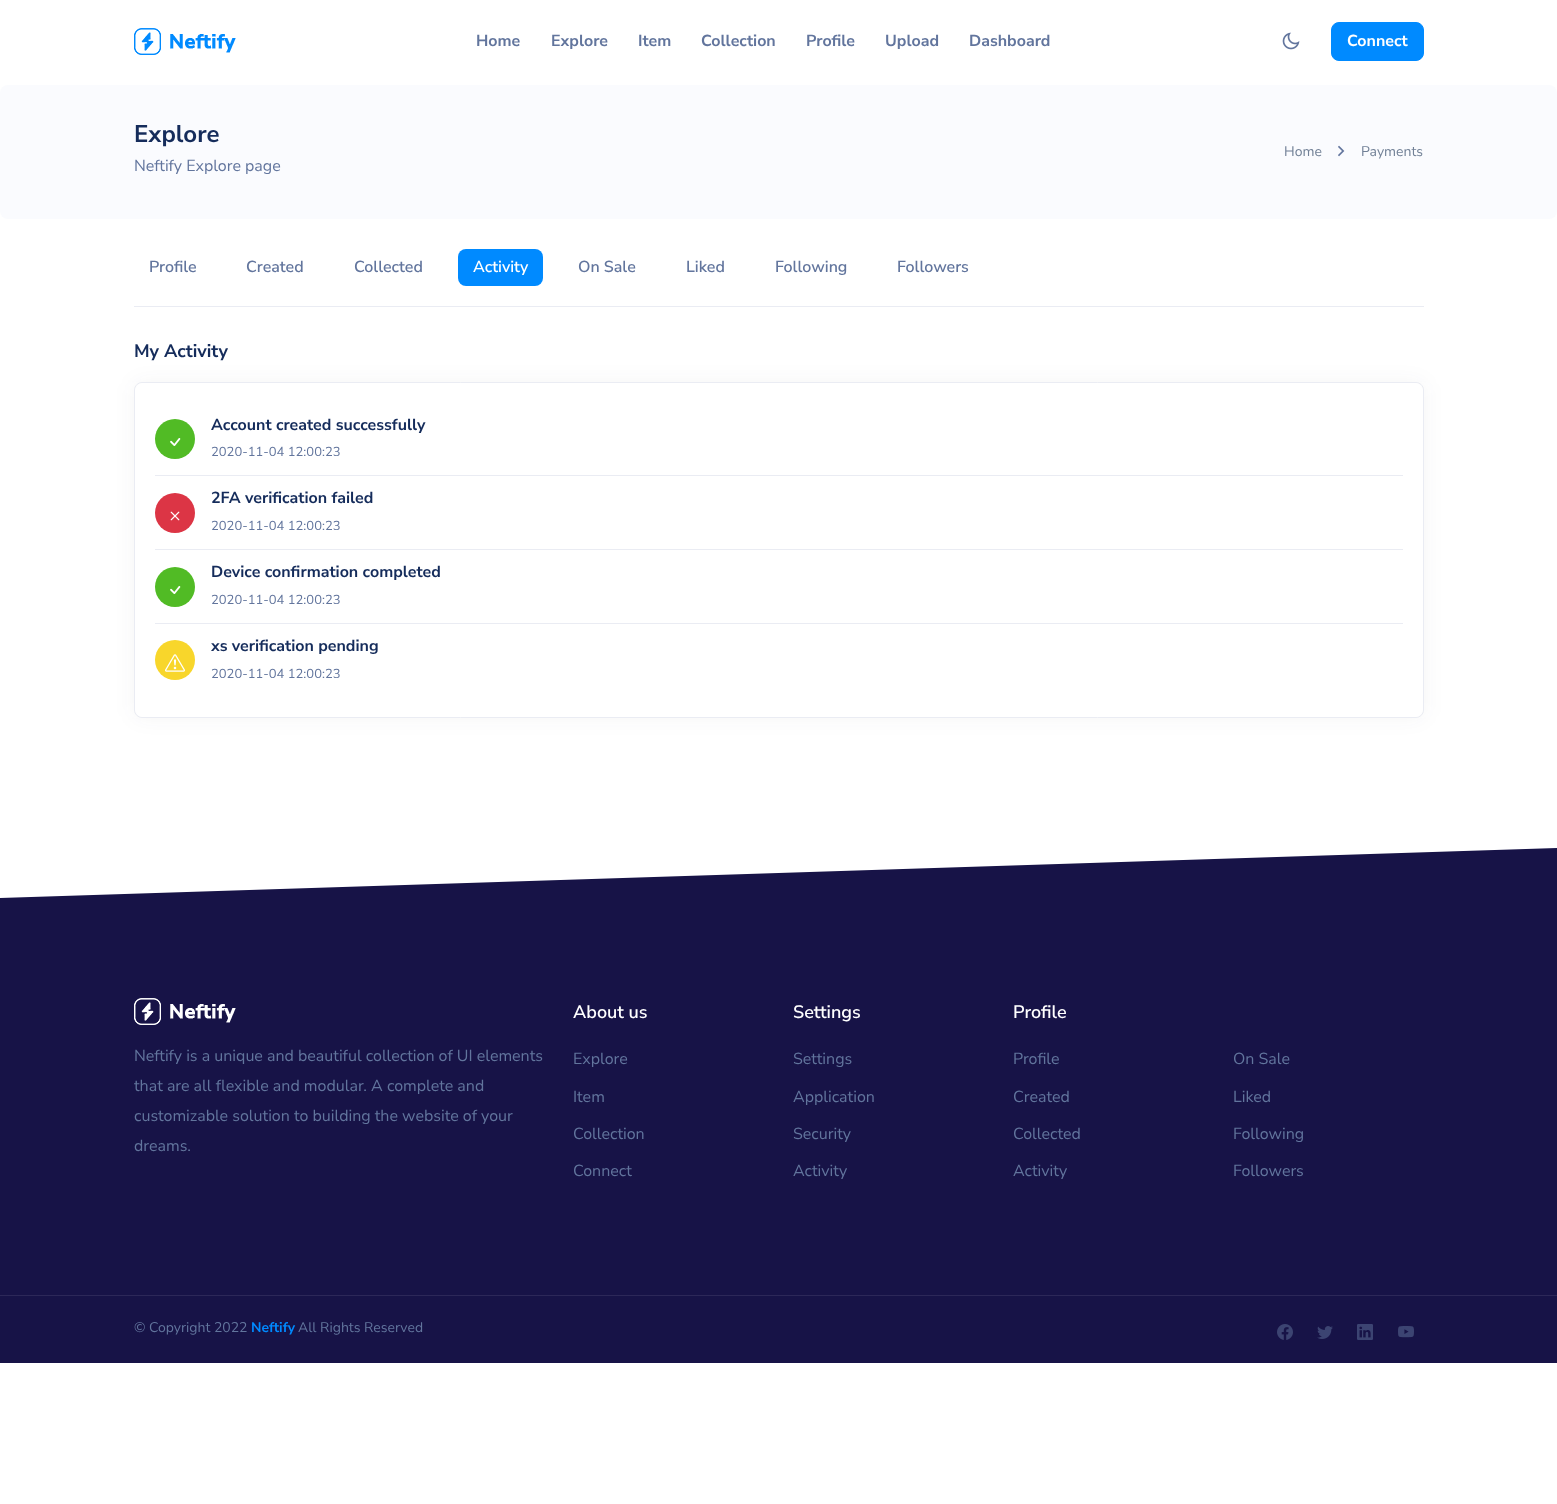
async function draw(canvas) {
	canvas.width = 1557;
	canvas.height = 1504;
	const c = canvas.getContext('2d');
	c.miterLimit = 4;
	c.fontKerning = 'normal';
	async function loadImage(src) {
		const img = new Image();
		img.src = src;
		await img.decode();
		return img;
	}

	c.fillStyle = '#fff';
	c.fillRect(0, 0, 1557, 1504);
	c.drawImage(await loadImage('img1.png'), 134, 28, 102, 27);
	c.font = 'bold 16px Nunito Sans';
	c.fillStyle = '#62759d';
	for (const [text, x, y] of [
		['Home', 476, 46],
		['Explore', 551, 46],
		['Item', 638, 46],
		['Collection', 701, 46],
		['Profile', 806, 46],
		['Upload', 885, 46],
		['Dashboard', 969, 46],
	]) {
		c.fillText(text, x, y);
	}
	c.drawImage(await loadImage('img2.png'), 1282, 32, 18, 18);
	c.fillStyle = '#008aff';
	c.beginPath();
	c.roundRect(1331.5, 22.5, 92, 38, 7.5);
	c.fill();
	c.strokeStyle = '#008aff';
	c.stroke();
	c.fillStyle = '#fff';
	c.fillText('Connect', 1347, 46);
	c.fillStyle = '#fafbfe';
	c.beginPath();
	c.roundRect(0, 85, 1557, 134, 8);
	c.fill();
	c.font = 'bold 24px Nunito Sans';
	c.fillStyle = '#152c5b';
	c.fillText('Explore', 134, 142);
	c.font = '16px Nunito Sans';
	c.fillStyle = '#62759d';
	c.fillText('Neftify Explore page', 134, 171);
	c.font = '14px Nunito Sans';
	c.fillStyle = '#718096';
	c.fillText('Home', 1284, 156);
	c.drawImage(await loadImage('img3.png'), 1338, 145, 7, 12);
	c.fillText('Payments', 1361, 156);
	c.fillStyle = '#eaecf3';
	c.fillRect(134, 306, 1290, 1);
	c.font = '600 16px Nunito Sans';
	c.fillStyle = '#62759d';
	for (const [text, x, y] of [
		['Profile', 149, 272],
		['Created', 246, 272],
		['Collected', 354, 272],
	]) {
		c.fillText(text, x, y);
	}
	c.fillStyle = '#008aff';
	c.beginPath();
	c.roundRect(458, 249, 85, 37, 8);
	c.fill();
	c.fillStyle = '#fff';
	c.fillText('Activity', 473, 272);
	c.fillStyle = '#62759d';
	for (const [text, x, y] of [
		['On Sale', 578, 272],
		['Liked', 686, 272],
		['Following', 775, 272],
		['Followers', 897, 272],
	]) {
		c.fillText(text, x, y);
	}
	c.font = 'bold 18px Nunito Sans';
	c.fillStyle = '#152c5b';
	c.fillText('My Activity', 134, 357);
	c.fillStyle = '#1f2d3d0d';
	c.filter = 'blur(10px)';
	c.beginPath();
	c.roundRect(134, 382, 1290, 336, 8);
	c.fill();
	c.filter = 'none';
	c.beginPath();
	c.roundRect(134.5, 382.5, 1289, 335, 7.5);
	c.strokeStyle = '#eaecf3';
	c.stroke();
	c.fillStyle = '#fff';
	c.beginPath();
	c.roundRect(135, 383, 1288, 334, 8);
	c.fill();
	c.fillStyle = '#eaecf3';
	c.fillRect(155, 475, 1248, 1);
	c.fillStyle = '#51bb25';
	c.beginPath();
	c.arc(175, 439, 20, 0, 2 * Math.PI);
	c.fill();
	c.drawImage(await loadImage('img4.png'), 170, 438, 11, 8);
	c.font = 'bold 16px Nunito Sans';
	c.fillStyle = '#152c5b';
	c.fillText('Account created successfully', 211, 430);
	c.font = '13px Nunito Sans';
	c.fillStyle = '#62759d';
	c.fillText('2020-11-04 12:00:23', 211, 456);
	c.fillStyle = '#eaecf3';
	c.fillRect(155, 549, 1248, 1);
	c.fillStyle = '#dc3545';
	c.beginPath();
	c.arc(175, 513, 20, 0, 2 * Math.PI);
	c.fill();
	c.drawImage(await loadImage('img5.png'), 170, 511, 10, 10);
	c.font = 'bold 16px Nunito Sans';
	c.fillStyle = '#152c5b';
	c.fillText('2FA verification failed', 211, 503);
	c.font = '13px Nunito Sans';
	c.fillStyle = '#62759d';
	c.fillText('2020-11-04 12:00:23', 211, 530);
	c.fillStyle = '#eaecf3';
	c.fillRect(155, 623, 1248, 1);
	c.fillStyle = '#51bb25';
	c.beginPath();
	c.arc(175, 587, 20, 0, 2 * Math.PI);
	c.fill();
	c.drawImage(await loadImage('img4.png'), 170, 586, 11, 8);
	c.font = 'bold 16px Nunito Sans';
	c.fillStyle = '#152c5b';
	c.fillText('Device confirmation completed', 211, 577);
	c.font = '13px Nunito Sans';
	c.fillStyle = '#62759d';
	c.fillText('2020-11-04 12:00:23', 211, 604);
	c.fillStyle = '#f8d62b';
	c.beginPath();
	c.arc(175, 660, 20, 0, 2 * Math.PI);
	c.fill();
	c.drawImage(await loadImage('img6.png'), 165, 654, 20, 18);
	c.font = 'bold 16px Nunito Sans';
	c.fillStyle = '#152c5b';
	c.fillText('xs verification pending', 211, 651);
	c.font = '13px Nunito Sans';
	c.fillStyle = '#62759d';
	c.fillText('2020-11-04 12:00:23', 211, 678);
	c.fillStyle = '#171347';
	c.fillRect(0, 898, 1557, 397);
	c.beginPath();
	c.moveTo(1557, 898);
	c.lineTo(0, 898);
	c.lineTo(1557, 848);
	c.closePath();
	c.fill();
	c.drawImage(await loadImage('img7.png'), 134, 998, 102, 27);
	c.font = '16px Nunito Sans';
	c.fillStyle = '#62759d';
	for (const [text, x, y] of [
		['Neftify is a unique and beautiful collection of UI elements', 134, 1061],
		['that are all flexible and modular. A complete and', 134, 1091],
		['customizable solution to building the website of your', 134, 1121],
		['dreams.', 134, 1151],
	]) {
		c.fillText(text, x, y);
	}
	c.font = '600 18px Nunito Sans';
	c.fillStyle = '#fff';
	c.fillText('About us', 573, 1018);
	c.font = '16px Nunito Sans';
	c.fillStyle = '#62759d';
	for (const [text, x, y] of [
		['Explore', 573, 1064],
		['Item', 573, 1102],
		['Collection', 573, 1139],
		['Connect', 573, 1176],
	]) {
		c.fillText(text, x, y);
	}
	c.font = '600 18px Nunito Sans';
	c.fillStyle = '#fff';
	c.fillText('Settings', 793, 1018);
	c.font = '16px Nunito Sans';
	c.fillStyle = '#62759d';
	for (const [text, x, y] of [
		['Settings', 793, 1064],
		['Application', 793, 1102],
		['Security', 793, 1139],
		['Activity', 793, 1176],
	]) {
		c.fillText(text, x, y);
	}
	c.font = '600 18px Nunito Sans';
	c.fillStyle = '#fff';
	c.fillText('Profile', 1013, 1018);
	c.font = '16px Nunito Sans';
	c.fillStyle = '#62759d';
	for (const [text, x, y] of [
		['Profile', 1013, 1064],
		['Created', 1013, 1102],
		['Collected', 1013, 1139],
		['Activity', 1013, 1176],
		['On Sale', 1233, 1064],
		['Liked', 1233, 1102],
		['Following', 1233, 1139],
		['Followers', 1233, 1176],
	]) {
		c.fillText(text, x, y);
	}
	c.fillStyle = '#171347';
	c.fillRect(0, 1296, 1557, 67);
	c.fillStyle = '#2c2858';
	c.fillRect(0, 1295, 1557, 1);
	c.font = '14px Nunito Sans';
	c.fillStyle = '#62759d';
	c.fillText('© Copyright 2022', 134, 1332);
	c.font = 'bold 14px Nunito Sans';
	c.fillStyle = '#008aff';
	c.fillText('Neftify', 251, 1332);
	c.font = '14px Nunito Sans';
	c.fillStyle = '#62759d';
	c.fillText('All Rights Reserved', 298, 1332);
	c.drawImage(await loadImage('img8.png'), 1277, 1324, 16, 16);
	c.drawImage(await loadImage('img9.png'), 1317, 1326, 16, 13);
	c.drawImage(await loadImage('img10.png'), 1357, 1324, 16, 16);
	c.drawImage(await loadImage('img11.png'), 1398, 1326, 16, 12);
}

draw(document.querySelector('canvas'));
